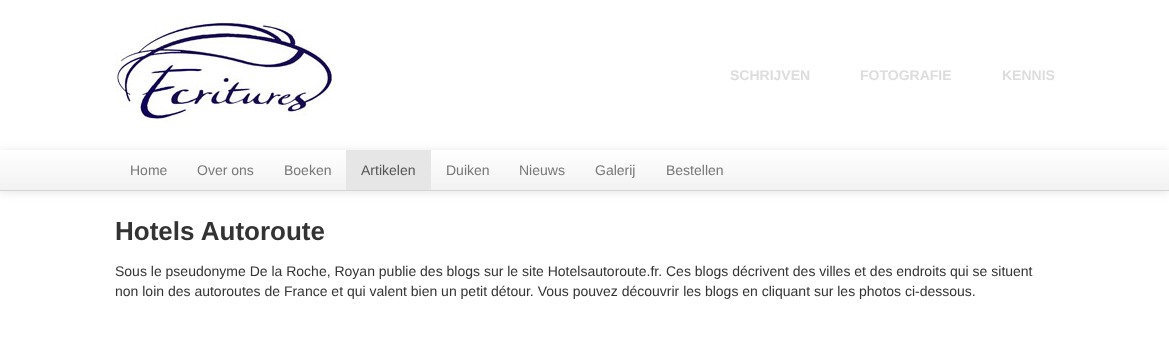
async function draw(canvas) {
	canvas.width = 1169;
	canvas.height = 357;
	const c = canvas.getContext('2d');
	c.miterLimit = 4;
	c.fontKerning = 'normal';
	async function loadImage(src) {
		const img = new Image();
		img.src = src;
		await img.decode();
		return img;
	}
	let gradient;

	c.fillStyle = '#fff';
	c.fillRect(0, 0, 1169, 357);
	c.drawImage(await loadImage('img1.png'), 115, 20, 220, 102);
	c.font = 'bold 14px Liberation Sans';
	c.fillStyle = '#ddd';
	for (const [text, x, y] of [
		['SCHRIJVEN', 730, 80],
		['FOTOGRAFIE', 860, 80],
		['KENNIS', 1002, 80],
	]) {
		c.fillText(text, x, y);
	}
	c.fillStyle = '#0000001a';
	c.filter = 'blur(5px)';
	c.beginPath();
	c.rect(0, 151, 1169, 41);
	c.fill();
	c.filter = 'none';
	gradient = c.createLinearGradient(585, 150, 585, 190);
	gradient.addColorStop(0, '#fff');
	gradient.addColorStop(1, '#f2f2f2');
	c.fillStyle = gradient;
	c.fillRect(0, 150, 1169, 40);
	c.fillStyle = '#d4d4d4';
	c.fillRect(0, 190, 1169, 1);
	c.font = '14px Liberation Sans';
	c.fillStyle = '#777';
	for (const [text, x, y] of [
		['Home', 130, 175],
		['Over ons', 197, 175],
		['Boeken', 284, 175],
	]) {
		c.fillText(text, x, y);
	}
	c.fillStyle = '#e6e6e6';
	c.fillRect(346, 150, 85, 40);
	c.fillStyle = '#555';
	c.fillText('Artikelen', 361, 175);
	c.fillStyle = '#777';
	for (const [text, x, y] of [
		['Duiken', 446, 175],
		['Nieuws', 519, 175],
		['Galerij', 595, 175],
		['Bestellen', 666, 175],
	]) {
		c.fillText(text, x, y);
	}
	c.font = 'bold 26px Liberation Sans';
	c.fillStyle = '#333';
	c.fillText('Hotels Autoroute', 115, 240);
	c.font = '14px Liberation Sans';
	c.fillText('Sous le pseudonyme De la Roche, Royan publie des blogs sur le site Hotelsautoroute.fr. Ces blogs décrivent des villes et des endroits qui se situent', 115, 276);
	c.fillText('non loin des autoroutes de France et qui valent bien un petit détour. Vous pouvez découvrir les blogs en cliquant sur les photos ci-dessous.', 115, 296);
}

draw(document.querySelector('canvas'));
